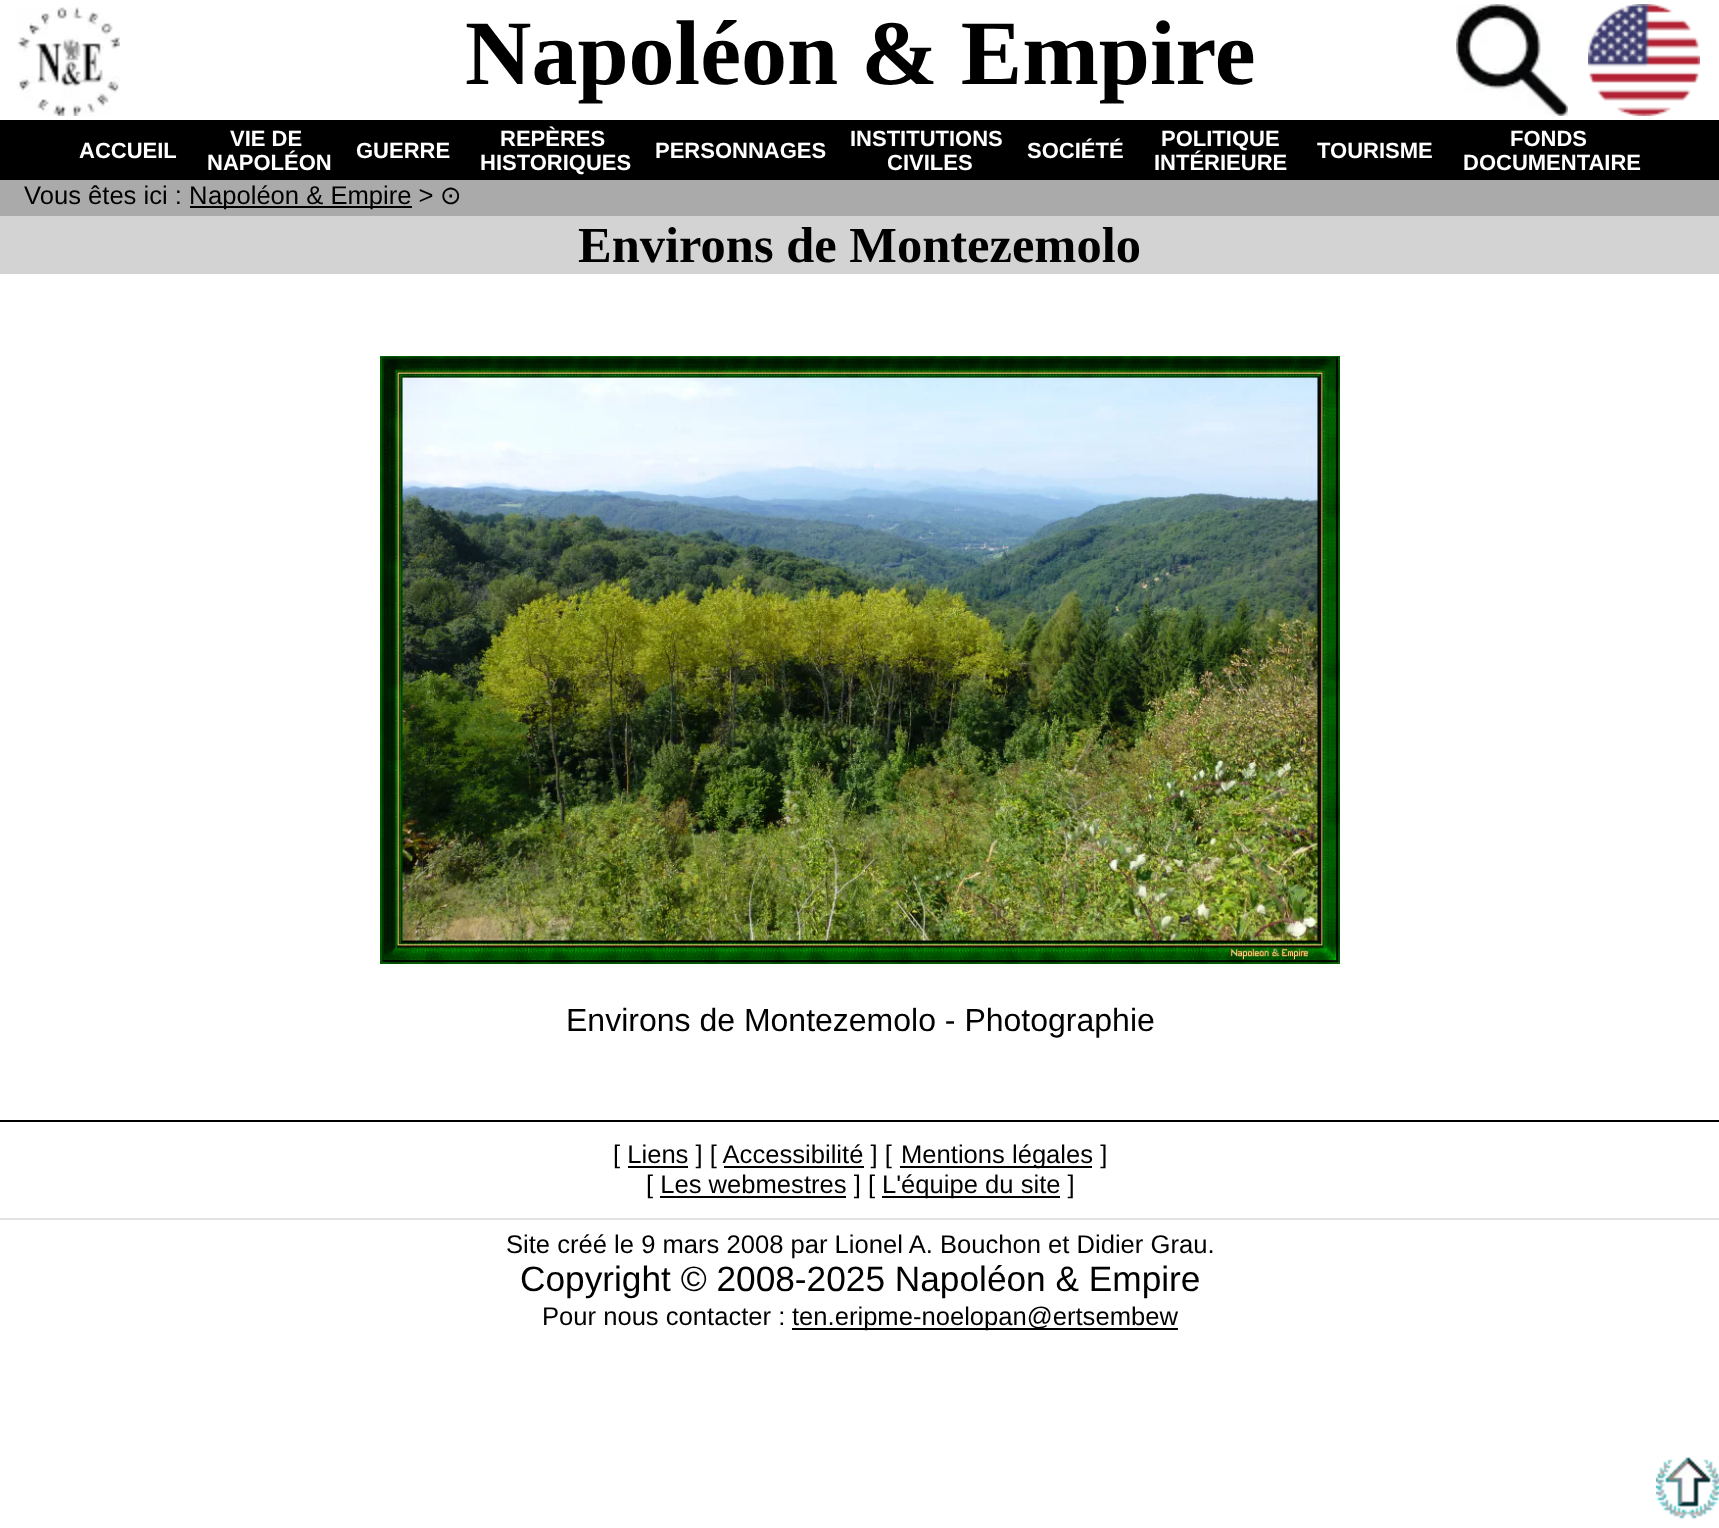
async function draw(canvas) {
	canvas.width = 1719;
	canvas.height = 1528;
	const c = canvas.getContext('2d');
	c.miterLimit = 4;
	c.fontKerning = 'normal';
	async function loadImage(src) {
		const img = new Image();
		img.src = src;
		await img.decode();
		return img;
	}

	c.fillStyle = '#fff';
	c.fillRect(0, 0, 1719, 1528);
	c.font = 'bold 92px Liberation Serif';
	c.fillStyle = '#000';
	c.fillText('Napoléon & Empire', 465, 84);
	c.fillRect(0, 120, 1719, 60);
	c.font = 'bold 22px Liberation Sans';
	c.fillStyle = '#fff';
	for (const [text, x, y] of [
		['ACCUEIL', 79, 158],
		['VIE DE', 230, 146],
		['NAPOLÉON', 207, 170],
		['GUERRE', 356, 158],
		['REPÈRES', 500, 146],
		['HISTORIQUES', 480, 170],
		['PERSONNAGES', 655, 158],
		['INSTITUTIONS', 850, 146],
		['CIVILES', 887, 170],
		['SOCIÉTÉ', 1027, 158],
		['POLITIQUE', 1161, 146],
		['INTÉRIEURE', 1154, 170],
		['TOURISME', 1317, 158],
		['FONDS', 1510, 146],
		['DOCUMENTAIRE', 1463, 170],
	]) {
		c.fillText(text, x, y);
	}
	c.drawImage(await loadImage('img1.png'), 17, 7, 103, 109);
	c.drawImage(await loadImage('img2.png'), 1456, 4, 112, 112);
	c.drawImage(await loadImage('img3.png'), 1588, 4, 112, 112);
	c.fillStyle = '#aaa';
	c.fillRect(0, 180, 1719, 36);
	c.font = '25.6px Liberation Sans';
	c.fillStyle = '#000';
	c.fillText('Vous êtes ici : N', 24, 204);
	c.fillRect(190, 206, 222, 2);
	c.fillText('apoléon & Empire >', 208, 204);
	c.font = '25.6px DejaVu Sans';
	c.fillText('⊙', 440, 204);
	c.drawImage(await loadImage('img4.png'), 1656, 1457, 63, 62);
	c.fillStyle = '#d3d3d3';
	c.fillRect(0, 216, 1719, 58);
	c.font = 'bold 50.5px Liberation Serif';
	c.fillStyle = '#000';
	c.fillText('Environs de Montezemolo', 578, 262);
	c.drawImage(await loadImage('img5.png'), 380, 356, 960, 608);
	c.font = '32px Liberation Sans';
	c.fillText('Environs de Montezemolo - Photographie', 566, 1031);
	c.fillRect(0, 1120, 1719, 2);
	c.fillStyle = '#e3e3e3';
	c.fillRect(0, 1218, 1719, 2);
	c.font = '25.6px Liberation Sans';
	c.fillStyle = '#000';
	c.fillText('[ Liens ] [ Accessibilité ] [', 613, 1163);
	c.fillRect(900, 1166, 192, 2);
	c.fillText('Mentions légales ]', 901, 1163);
	c.fillRect(628, 1166, 60, 2);
	c.fillRect(724, 1166, 140, 2);
	c.fillText('[ Les webmestres ] [', 646, 1193);
	c.fillRect(882, 1196, 178, 2);
	c.fillText('L\'équipe du site ]', 882, 1193);
	c.fillRect(660, 1196, 186, 2);
	c.fillText('Site créé le 9 mars 2008 par Lionel A. Bouchon et Didier Grau.', 506, 1253);
	c.font = '35.25px Liberation Sans';
	c.fillText('Copyright © 2008-2025 Napoléon & Empire', 520, 1291);
	c.font = '25.6px Liberation Sans';
	c.fillText('Pour nous contacter :', 542, 1325);
	c.fillRect(792, 1328, 386, 2);
	c.fillText('ten.eripme-noelopan@ertsembew', 792, 1325);
}

draw(document.querySelector('canvas'));
